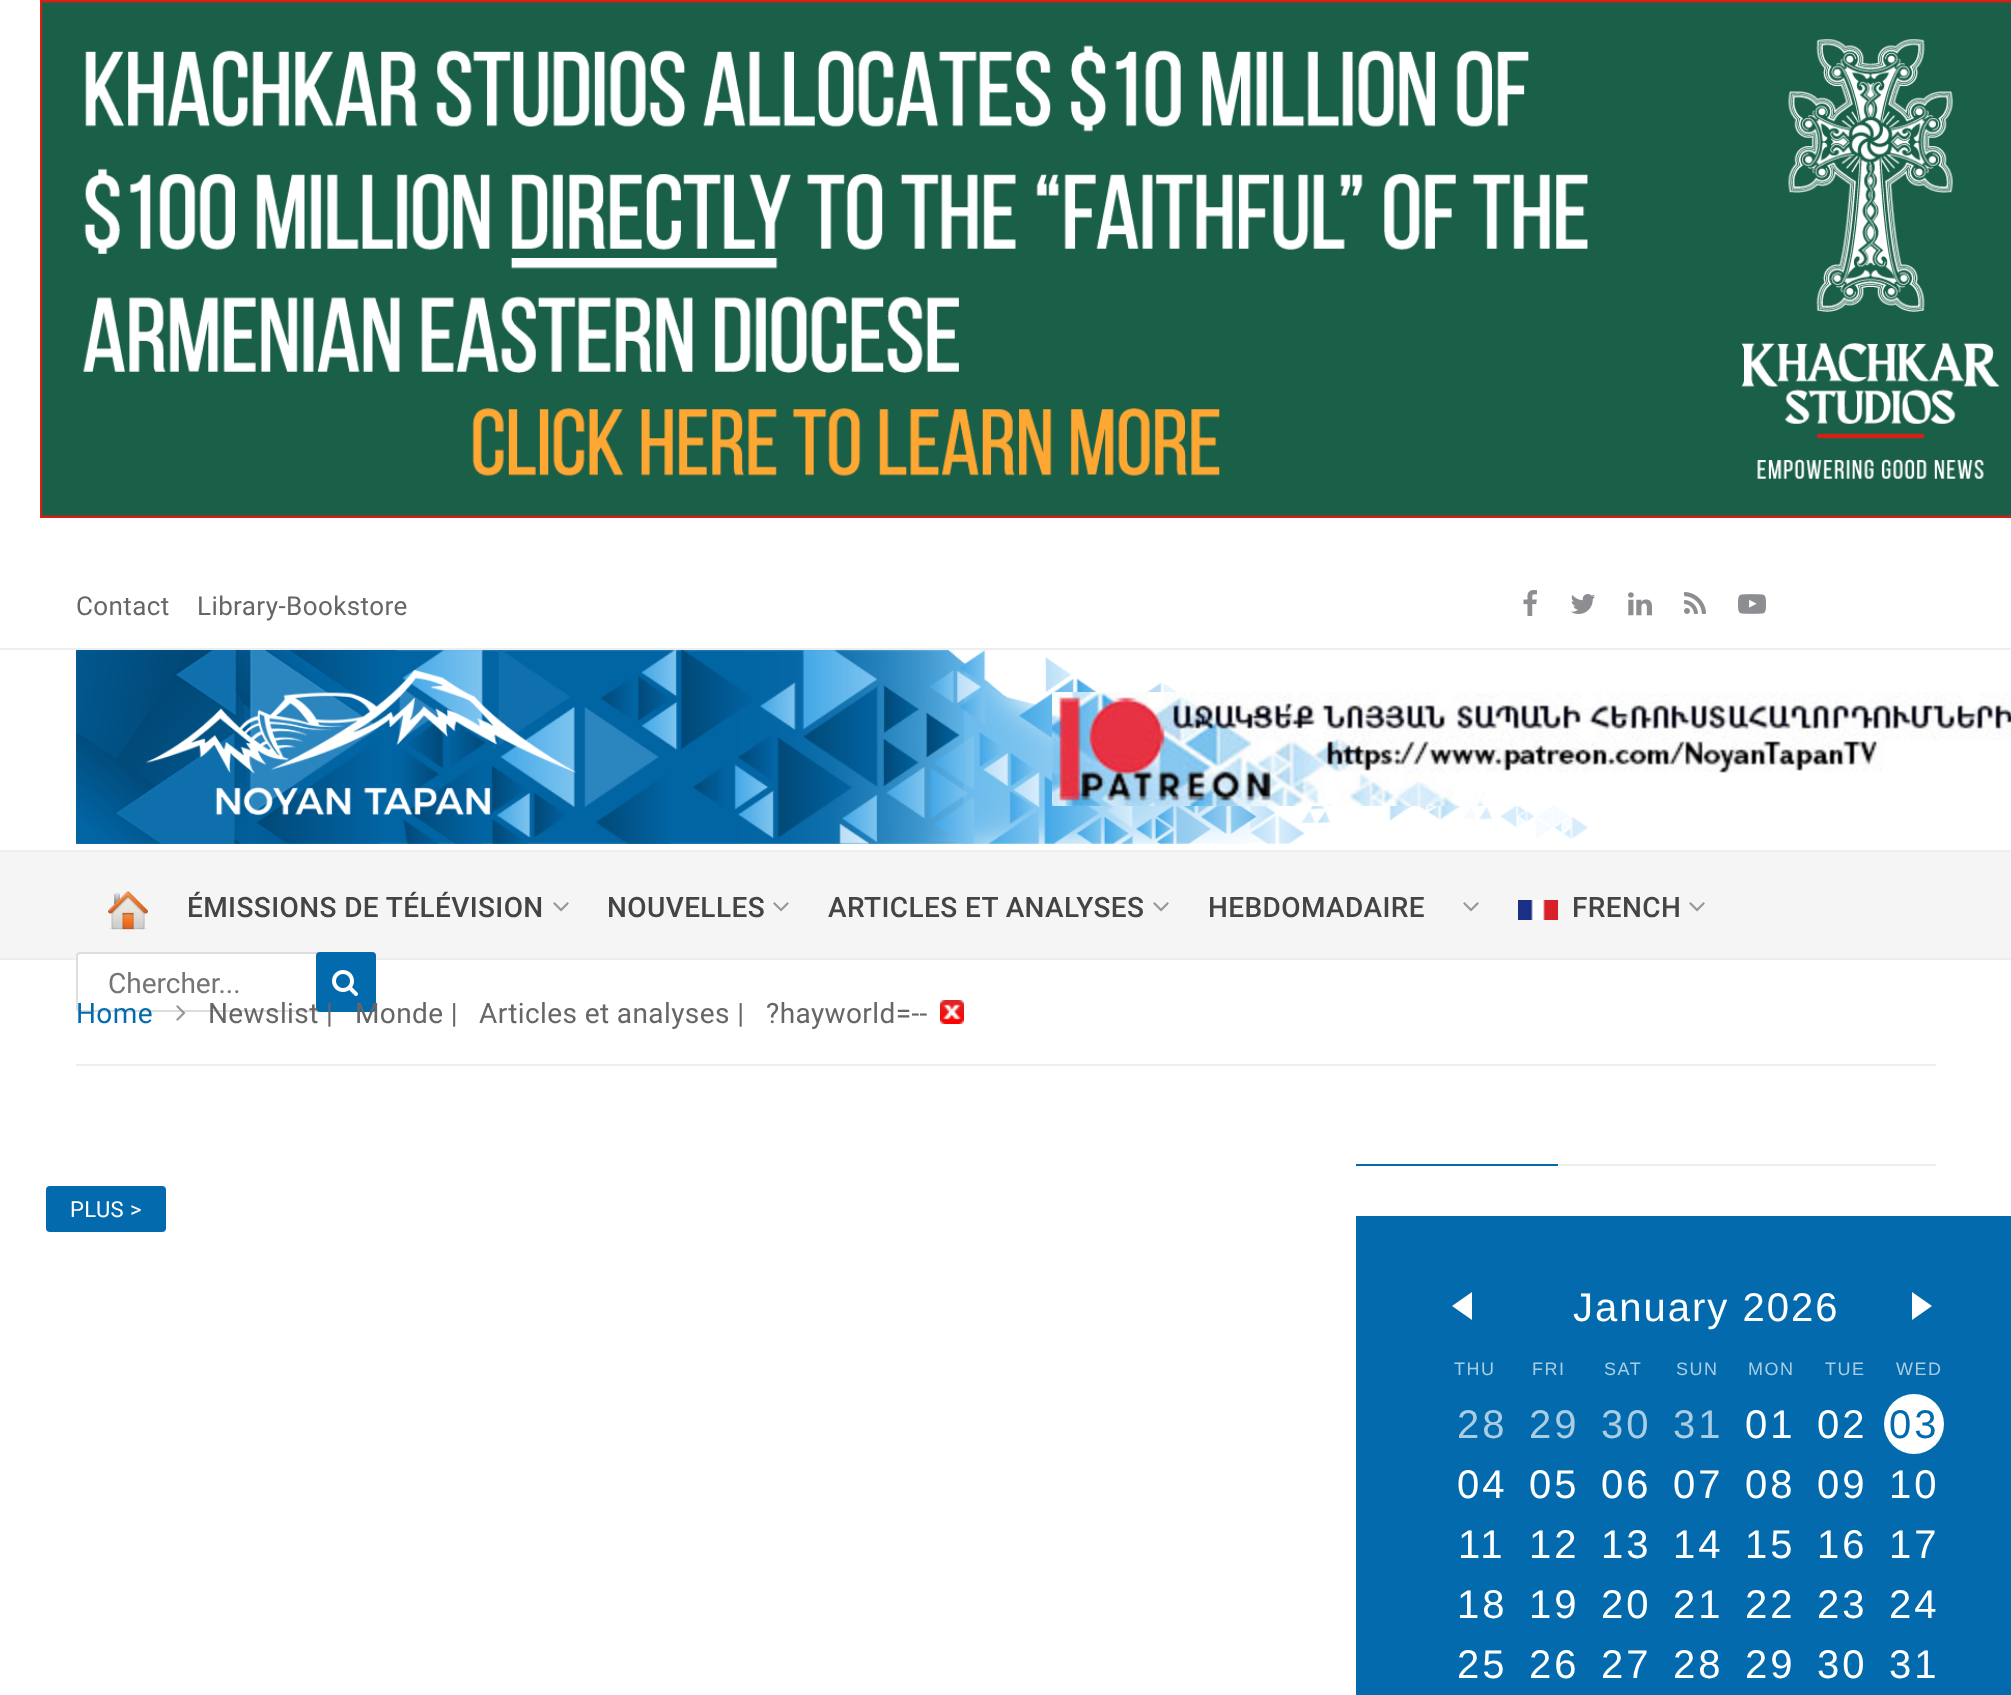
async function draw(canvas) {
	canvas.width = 2011;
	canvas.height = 1695;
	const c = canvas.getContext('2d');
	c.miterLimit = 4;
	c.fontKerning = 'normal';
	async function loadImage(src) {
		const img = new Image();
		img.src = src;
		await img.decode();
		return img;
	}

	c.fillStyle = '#fff';
	c.fillRect(0, 0, 2011, 1695);
	c.drawImage(await loadImage('img1.png'), 40, 0, 1971, 518);
	c.fillStyle = '#eee';
	c.fillRect(0, 648, 2011, 2);
	c.letterSpacing = '0.4px';
	c.font = '26px Roboto';
	c.fillStyle = '#666';
	c.fillText('Contact', 76, 615);
	c.fillText('Library-Bookstore', 197, 615);
	c.drawImage(await loadImage('img2.png'), 1523, 590, 14, 26);
	c.drawImage(await loadImage('img3.png'), 1571, 594, 25, 20);
	c.drawImage(await loadImage('img4.png'), 1628, 592, 24, 24);
	c.drawImage(await loadImage('img5.png'), 1684, 592, 22, 22);
	c.drawImage(await loadImage('img6.png'), 1738, 594, 28, 20);
	c.drawImage(await loadImage('img7.png'), 76, 650, 1512, 194);
	c.drawImage(await loadImage('img8.png'), 146, 670, 430, 146);
	c.drawImage(await loadImage('img9.png'), 1052, 692, 959, 114);
	for (const [x, y, w, h, color] of [
		[0, 852, 2011, 106, '#f5f5f5'],
		[0, 850, 2011, 2, '#eee'],
		[0, 958, 2011, 2, '#eee'],
	]) {
		c.fillStyle = color;
		c.fillRect(x, y, w, h);
	}
	c.drawImage(await loadImage('img10.png'), 108, 891, 40, 39);
	c.font = '500 28px Roboto';
	c.fillStyle = '#444';
	c.fillText('ÉMISSIONS DE TÉLÉVISION', 187, 917);
	c.drawImage(await loadImage('img11.png'), 553, 902, 16, 10);
	c.fillText('NOUVELLES', 607, 917);
	c.drawImage(await loadImage('img11.png'), 773, 902, 16, 10);
	c.fillText('ARTICLES ET ANALYSES', 828, 917);
	c.drawImage(await loadImage('img11.png'), 1153, 902, 16, 10);
	c.fillText('HEBDOMADAIRE', 1208, 917);
	c.drawImage(await loadImage('img11.png'), 1463, 902, 16, 10);
	c.drawImage(await loadImage('img12.png'), 1518, 900, 40, 20);
	c.fillText('FRENCH', 1572, 917);
	c.drawImage(await loadImage('img11.png'), 1689, 902, 16, 10);
	c.fillStyle = '#fff';
	c.beginPath();
	c.roundRect(77, 953, 298, 58, 3);
	c.fill();
	c.strokeStyle = '#ddd';
	c.lineWidth = 2;
	c.stroke();
	c.letterSpacing = '0px';
	c.font = '28px Roboto';
	c.fillStyle = '#757575';
	c.fillText('Chercher...', 108, 993);
	c.fillStyle = '#036bad';
	c.beginPath();
	c.roundRect(316, 952, 60, 60, 4);
	c.fill();
	c.drawImage(await loadImage('img13.png'), 332, 970, 26, 26);
	c.fillStyle = '#eee';
	c.fillRect(76, 1064, 1860, 2);
	c.letterSpacing = '0.4px';
	c.fillStyle = '#036bad';
	c.fillText('Home', 76, 1023);
	c.drawImage(await loadImage('img14.png'), 176, 1005, 10, 16);
	c.fillStyle = '#666';
	for (const [text, x, y] of [
		['Newslist |', 208, 1023],
		['Monde |', 355, 1023],
		['Articles et analyses |', 479, 1023],
		['?hayworld=--', 766, 1023],
	]) {
		c.fillText(text, x, y);
	}
	c.drawImage(await loadImage('img15.png'), 940, 1000, 24, 24);
	c.fillStyle = '#036bad';
	c.beginPath();
	c.roundRect(46, 1186, 120, 46, 4);
	c.fill();
	c.font = '22px Roboto';
	c.fillStyle = '#fff';
	c.fillText('PLUS >', 70, 1217);
	for (const [x, y, w, h, color] of [
		[1558, 1164, 378, 2, '#eee'],
		[1356, 1164, 202, 2, '#036bad'],
		[1356, 1216, 655, 479, '#036bad'],
	]) {
		c.fillStyle = color;
		c.fillRect(x, y, w, h);
	}
	c.fillStyle = '#fff';
	c.beginPath();
	c.moveTo(1472, 1292);
	c.lineTo(1472, 1320);
	c.lineTo(1452, 1306);
	c.closePath();
	c.fill();
	c.letterSpacing = '2px';
	c.font = '40px Liberation Sans';
	c.fillText('January 2026', 1573, 1321);
	c.beginPath();
	c.moveTo(1912, 1320);
	c.lineTo(1912, 1292);
	c.lineTo(1932, 1306);
	c.closePath();
	c.fill();
	c.letterSpacing = '1.5px';
	c.font = '18px Liberation Sans';
	c.fillStyle = '#a9cde3';
	for (const [text, x, y] of [
		['THU', 1454, 1375],
		['FRI', 1532, 1375],
		['SAT', 1604, 1375],
		['SUN', 1676, 1375],
		['MON', 1748, 1375],
		['TUE', 1825, 1375],
		['WED', 1896, 1375],
	]) {
		c.fillText(text, x, y);
	}
	c.letterSpacing = '3px';
	c.font = '40px Liberation Sans';
	for (const [text, x, y] of [
		['28', 1457, 1438],
		['29', 1529, 1438],
		['30', 1601, 1438],
		['31', 1673, 1438],
	]) {
		c.fillText(text, x, y);
	}
	c.fillStyle = '#fff';
	c.fillText('01', 1745, 1438);
	c.fillText('02', 1817, 1438);
	c.beginPath();
	c.arc(1914, 1424, 30, 0, 2 * Math.PI);
	c.fill();
	c.fillStyle = '#036bad';
	c.fillText('03', 1889, 1438);
	c.fillStyle = '#fff';
	for (const [text, x, y] of [
		['04', 1457, 1498],
		['05', 1529, 1498],
		['06', 1601, 1498],
		['07', 1673, 1498],
		['08', 1745, 1498],
		['09', 1817, 1498],
		['10', 1889, 1498],
		['11', 1458, 1558],
		['12', 1529, 1558],
		['13', 1601, 1558],
		['14', 1673, 1558],
		['15', 1745, 1558],
		['16', 1817, 1558],
		['17', 1889, 1558],
		['18', 1457, 1618],
		['19', 1529, 1618],
		['20', 1601, 1618],
		['21', 1673, 1618],
		['22', 1745, 1618],
		['23', 1817, 1618],
		['24', 1889, 1618],
		['25', 1457, 1678],
		['26', 1529, 1678],
		['27', 1601, 1678],
		['28', 1673, 1678],
		['29', 1745, 1678],
		['30', 1817, 1678],
		['31', 1889, 1678],
	]) {
		c.fillText(text, x, y);
	}
}

draw(document.querySelector('canvas'));
